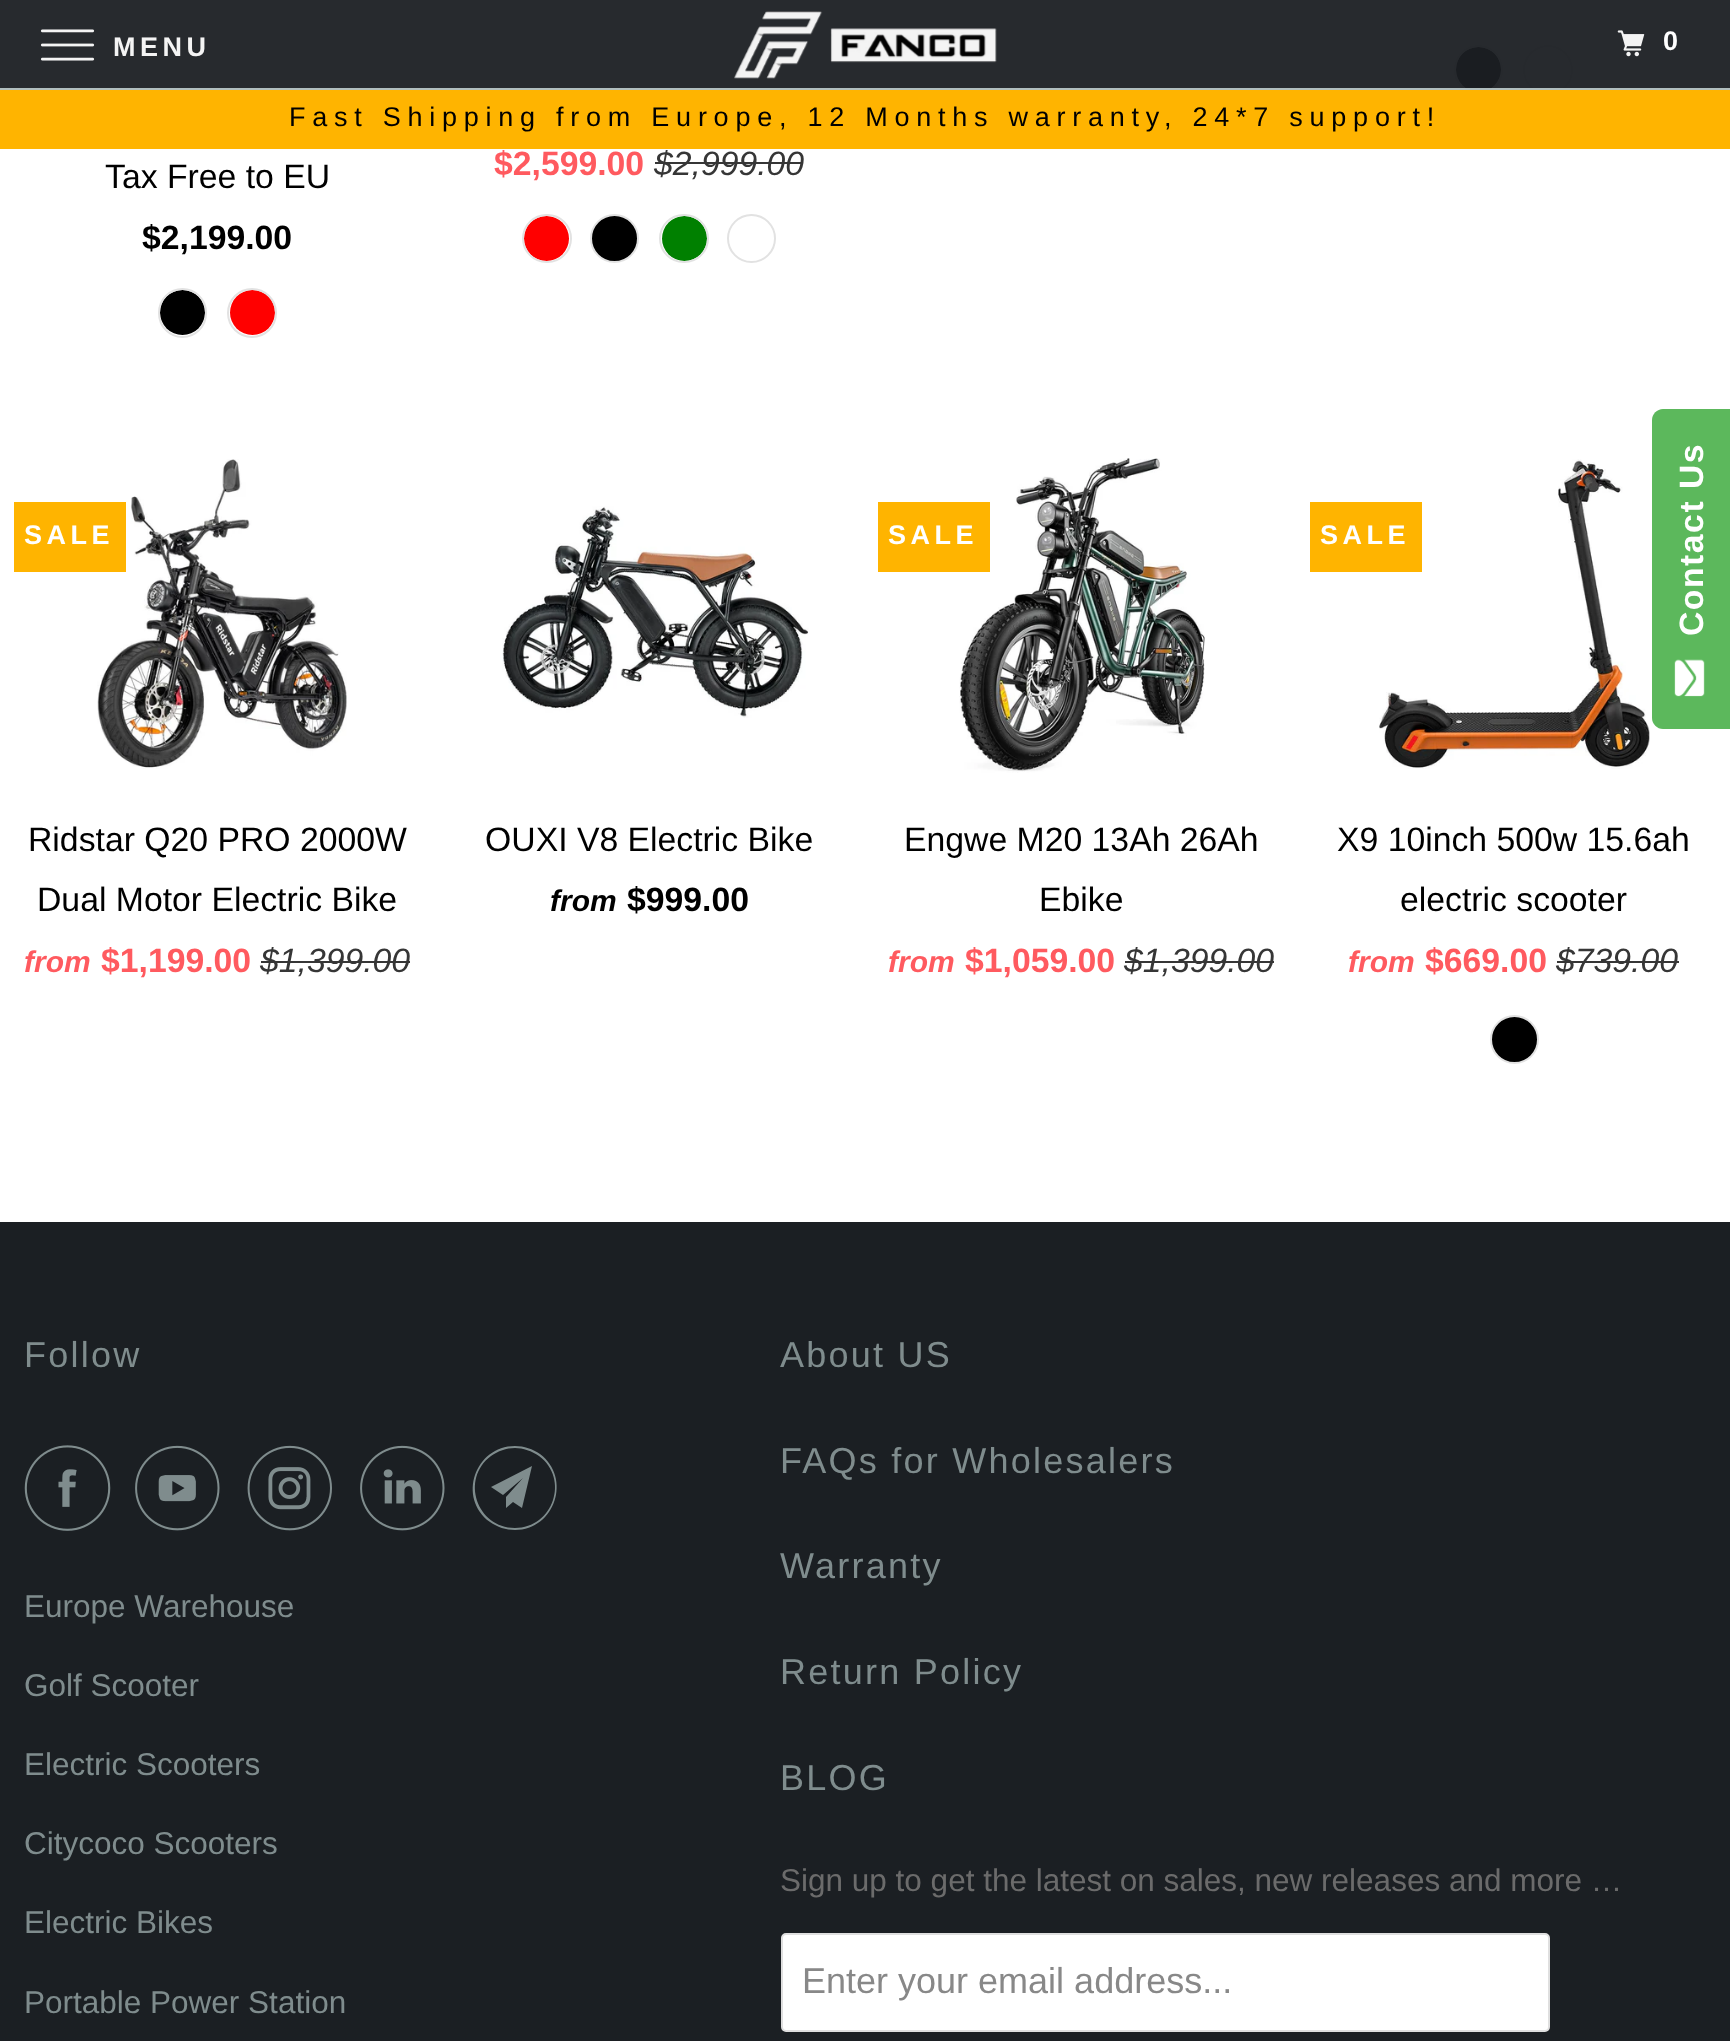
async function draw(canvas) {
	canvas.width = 1730;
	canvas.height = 2041;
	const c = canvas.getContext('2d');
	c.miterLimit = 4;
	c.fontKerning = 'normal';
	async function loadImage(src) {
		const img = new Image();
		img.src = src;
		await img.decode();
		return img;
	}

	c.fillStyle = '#fff';
	c.fillRect(0, 0, 1730, 2041);
	c.fillStyle = '#000';
	c.beginPath();
	c.arc(1478.5, 69.5, 22.5, 0, 2 * Math.PI);
	c.fill();
	c.beginPath();
	c.roundRect(1455, 46, 47, 48, 23.5);
	c.strokeStyle = '#e2e2e2';
	c.lineWidth = 2;
	c.stroke();
	c.beginPath();
	c.arc(1548, 70, 24, 0, 2 * Math.PI);
	c.stroke();
	c.fillStyle = '#1b1f23f2';
	c.fillRect(0, 0, 1730, 90);
	c.fillStyle = '#b8c6c6f2';
	c.fillRect(0, 88, 1730, 2);
	c.drawImage(await loadImage('img1.png'), 40, 29, 55, 32);
	c.letterSpacing = '4.5px';
	c.font = 'bold 27px Liberation Sans';
	c.fillStyle = '#f4f4f4';
	c.fillText('MENU', 113, 56);
	c.drawImage(await loadImage('img2.png'), 734, 11, 263, 68);
	c.drawImage(await loadImage('img3.png'), 1617, 30, 28, 27);
	c.fillStyle = '#fff';
	c.fillText('0', 1663, 50);
	c.fillStyle = '#ffb400';
	c.fillRect(0, 90, 1730, 59);
	c.letterSpacing = '6.75px';
	c.font = '27px Liberation Sans';
	c.fillStyle = '#000';
	c.fillText('Fast Shipping from Europe, 12 Months warranty, 24*7 support!', 289, 126);
	c.letterSpacing = '0px';
	c.font = '33.75px Liberation Sans';
	c.fillText('Tax Free to EU', 105, 188);
	c.font = 'bold 33.75px Liberation Sans';
	c.fillText('$2,199.00', 142, 249);
	c.beginPath();
	c.arc(182.5, 312.5, 22.5, 0, 2 * Math.PI);
	c.fill();
	c.beginPath();
	c.roundRect(159, 289, 47, 48, 23.5);
	c.stroke();
	c.fillStyle = '#f00';
	c.beginPath();
	c.arc(252.5, 312.5, 22.5, 0, 2 * Math.PI);
	c.fill();
	c.beginPath();
	c.arc(252, 313, 24, 0, 2 * Math.PI);
	c.stroke();
	c.fillStyle = '#ff5a5f';
	c.fillText('$2,599.00', 494, 175);
	c.font = 'italic 33.75px Liberation Sans';
	c.fillStyle = '#363636';
	c.fillText('$2,999.00', 654, 175);
	c.fillRect(655, 162, 148, 2);
	c.fillStyle = '#f00';
	c.beginPath();
	c.arc(546.5, 238.5, 22.5, 0, 2 * Math.PI);
	c.fill();
	c.beginPath();
	c.roundRect(523, 215, 48, 47, 23.5);
	c.stroke();
	c.fillStyle = '#000';
	c.beginPath();
	c.arc(614.5, 238.5, 23.5, 0, 2 * Math.PI);
	c.fill();
	c.stroke();
	c.fillStyle = '#008000';
	c.beginPath();
	c.arc(684.5, 238.5, 22.5, 0, 2 * Math.PI);
	c.fill();
	c.beginPath();
	c.roundRect(660, 215, 48, 47, 23.5);
	c.stroke();
	c.beginPath();
	c.arc(751.5, 238.5, 23.5, 0, 2 * Math.PI);
	c.stroke();
	c.drawImage(await loadImage('img4.png'), 97, 459, 250, 310);
	c.fillStyle = '#ffb400';
	c.fillRect(14, 502, 112, 70);
	c.letterSpacing = '4.5px';
	c.font = 'bold 27px Liberation Sans';
	c.fillStyle = '#fff';
	c.fillText('SALE', 24, 544);
	c.letterSpacing = '0px';
	c.font = '33.75px Liberation Sans';
	c.fillStyle = '#000';
	c.fillText('Ridstar Q20 PRO 2000W', 28, 851);
	c.fillText('Dual Motor Electric Bike', 37, 911);
	c.font = 'italic bold 30px Liberation Sans';
	c.fillStyle = '#ff5a5f';
	c.fillText('from', 24, 972);
	c.font = 'bold 33.75px Liberation Sans';
	c.fillText('$1,199.00', 101, 972);
	c.font = 'italic 33.75px Liberation Sans';
	c.fillStyle = '#363636';
	c.fillText('$1,399.00', 260, 972);
	c.fillRect(261, 961, 149, 2);
	c.drawImage(await loadImage('img5.png'), 502, 506, 307, 212);
	c.font = '33.75px Liberation Sans';
	c.fillStyle = '#000';
	c.fillText('OUXI V8 Electric Bike', 485, 851);
	c.font = 'italic bold 30px Liberation Sans';
	c.fillText('from', 550, 911);
	c.font = 'bold 33.75px Liberation Sans';
	c.fillText('$999.00', 627, 911);
	c.drawImage(await loadImage('img6.png'), 959, 458, 246, 315);
	c.fillStyle = '#ffb400';
	c.fillRect(878, 502, 112, 70);
	c.letterSpacing = '4.5px';
	c.font = 'bold 27px Liberation Sans';
	c.fillStyle = '#fff';
	c.fillText('SALE', 888, 544);
	c.letterSpacing = '0px';
	c.font = '33.75px Liberation Sans';
	c.fillStyle = '#000';
	c.fillText('Engwe M20 13Ah 26Ah', 904, 851);
	c.fillText('Ebike', 1039, 911);
	c.font = 'italic bold 30px Liberation Sans';
	c.fillStyle = '#ff5a5f';
	c.fillText('from', 888, 972);
	c.font = 'bold 33.75px Liberation Sans';
	c.fillText('$1,059.00', 965, 972);
	c.font = 'italic 33.75px Liberation Sans';
	c.fillStyle = '#363636';
	c.fillText('$1,399.00', 1124, 972);
	c.fillRect(1125, 961, 149, 2);
	c.drawImage(await loadImage('img7.png'), 1379, 459, 271, 310);
	c.fillStyle = '#ffb400';
	c.fillRect(1310, 502, 112, 70);
	c.letterSpacing = '4.5px';
	c.font = 'bold 27px Liberation Sans';
	c.fillStyle = '#fff';
	c.fillText('SALE', 1320, 544);
	c.letterSpacing = '0px';
	c.font = '33.75px Liberation Sans';
	c.fillStyle = '#000';
	c.fillText('X9 10inch 500w 15.6ah', 1337, 851);
	c.fillText('electric scooter', 1400, 911);
	c.font = 'italic bold 30px Liberation Sans';
	c.fillStyle = '#ff5a5f';
	c.fillText('from', 1348, 972);
	c.font = 'bold 33.75px Liberation Sans';
	c.fillText('$669.00', 1425, 972);
	c.font = 'italic 33.75px Liberation Sans';
	c.fillStyle = '#363636';
	c.fillText('$739.00', 1556, 972);
	c.fillRect(1557, 961, 122, 2);
	c.fillStyle = '#000';
	c.beginPath();
	c.arc(1514.5, 1039.5, 23.5, 0, 2 * Math.PI);
	c.fill();
	c.stroke();
	c.fillStyle = '#1b1f23';
	c.fillRect(0, 1222, 1730, 819);
	c.letterSpacing = '2.25px';
	c.font = '36px Liberation Sans';
	c.fillStyle = '#7f8c8d';
	c.fillText('Follow', 24, 1367);
	c.drawImage(await loadImage('img8.png'), 24, 1445, 87, 86);
	c.drawImage(await loadImage('img9.png'), 135, 1445, 85, 86);
	c.drawImage(await loadImage('img10.png'), 247, 1445, 85, 86);
	c.drawImage(await loadImage('img11.png'), 360, 1445, 85, 86);
	c.beginPath();
	c.moveTo(522, 1508);
	c.lineTo(513, 1502);
	c.lineTo(506, 1508);
	c.lineTo(506, 1497);
	c.lineTo(523, 1478);
	c.lineTo(503, 1495);
	c.lineTo(491, 1487);
	c.lineTo(532, 1466);
	c.closePath();
	c.moveTo(515, 1448);
	c.bezierCurveTo(506, 1448, 498, 1451, 491, 1456);
	c.bezierCurveTo(460, 1479, 477, 1528, 515, 1528);
	c.bezierCurveTo(553, 1528, 570, 1479, 539, 1456);
	c.bezierCurveTo(532, 1451, 523, 1448, 515, 1448);
	c.closePath();
	c.moveTo(515, 1530);
	c.bezierCurveTo(506, 1530, 497, 1527, 490, 1522);
	c.bezierCurveTo(457, 1498, 475, 1446, 515, 1446);
	c.bezierCurveTo(524, 1446, 533, 1449, 540, 1454);
	c.bezierCurveTo(572, 1478, 555, 1530, 515, 1530);
	c.closePath();
	c.fill();
	c.letterSpacing = '0px';
	c.font = '31.5px Liberation Sans';
	for (const [text, x, y] of [
		['Europe Warehouse', 24, 1617],
		['Golf Scooter', 24, 1696],
		['Electric Scooters', 24, 1775],
		['Citycoco Scooters', 24, 1854],
		['Electric Bikes', 24, 1933],
		['Portable Power Station', 24, 2013],
	]) {
		c.fillText(text, x, y);
	}
	c.letterSpacing = '2.25px';
	c.font = '36px Liberation Sans';
	for (const [text, x, y] of [
		['About US', 780, 1367],
		['FAQs for Wholesalers', 780, 1473],
		['Warranty', 780, 1578],
		['Return Policy', 780, 1684],
		['BLOG', 780, 1790],
	]) {
		c.fillText(text, x, y);
	}
	c.letterSpacing = '0px';
	c.font = '31.5px Liberation Sans';
	c.fillStyle = '#6b6b6b';
	c.fillText('Sign up to get the latest on sales, new releases and more …', 780, 1891);
	c.fillStyle = '#fff';
	c.beginPath();
	c.roundRect(782, 1934, 767, 97, 4);
	c.fill();
	c.strokeStyle = '#dfdfdf';
	c.stroke();
	c.font = '36px Liberation Sans';
	c.fillStyle = '#888';
	c.fillText('Enter your email address...', 802, 1993);
	c.fillStyle = '#5cb85c';
	c.beginPath();
	c.moveTo(1652, 718);
	c.lineTo(1652, 420);
	c.bezierCurveTo(1652, 414, 1657, 409, 1663, 409);
	c.lineTo(1730, 409);
	c.lineTo(1730, 729);
	c.lineTo(1663, 729);
	c.bezierCurveTo(1657, 729, 1652, 724, 1652, 718);
	c.closePath();
	c.fill();
	c.letterSpacing = '1.5px';
	c.font = 'bold 33.75px Liberation Sans';
	c.fillStyle = '#fff';
	c.save();
	c.translate(1703, 636);
	c.rotate(-90 * Math.PI / 180);
	c.fillText('Contact Us', 0, 0);
	c.restore();
	c.drawImage(await loadImage('img12.png'), 1674, 659, 31, 38);
}

draw(document.querySelector('canvas'));
